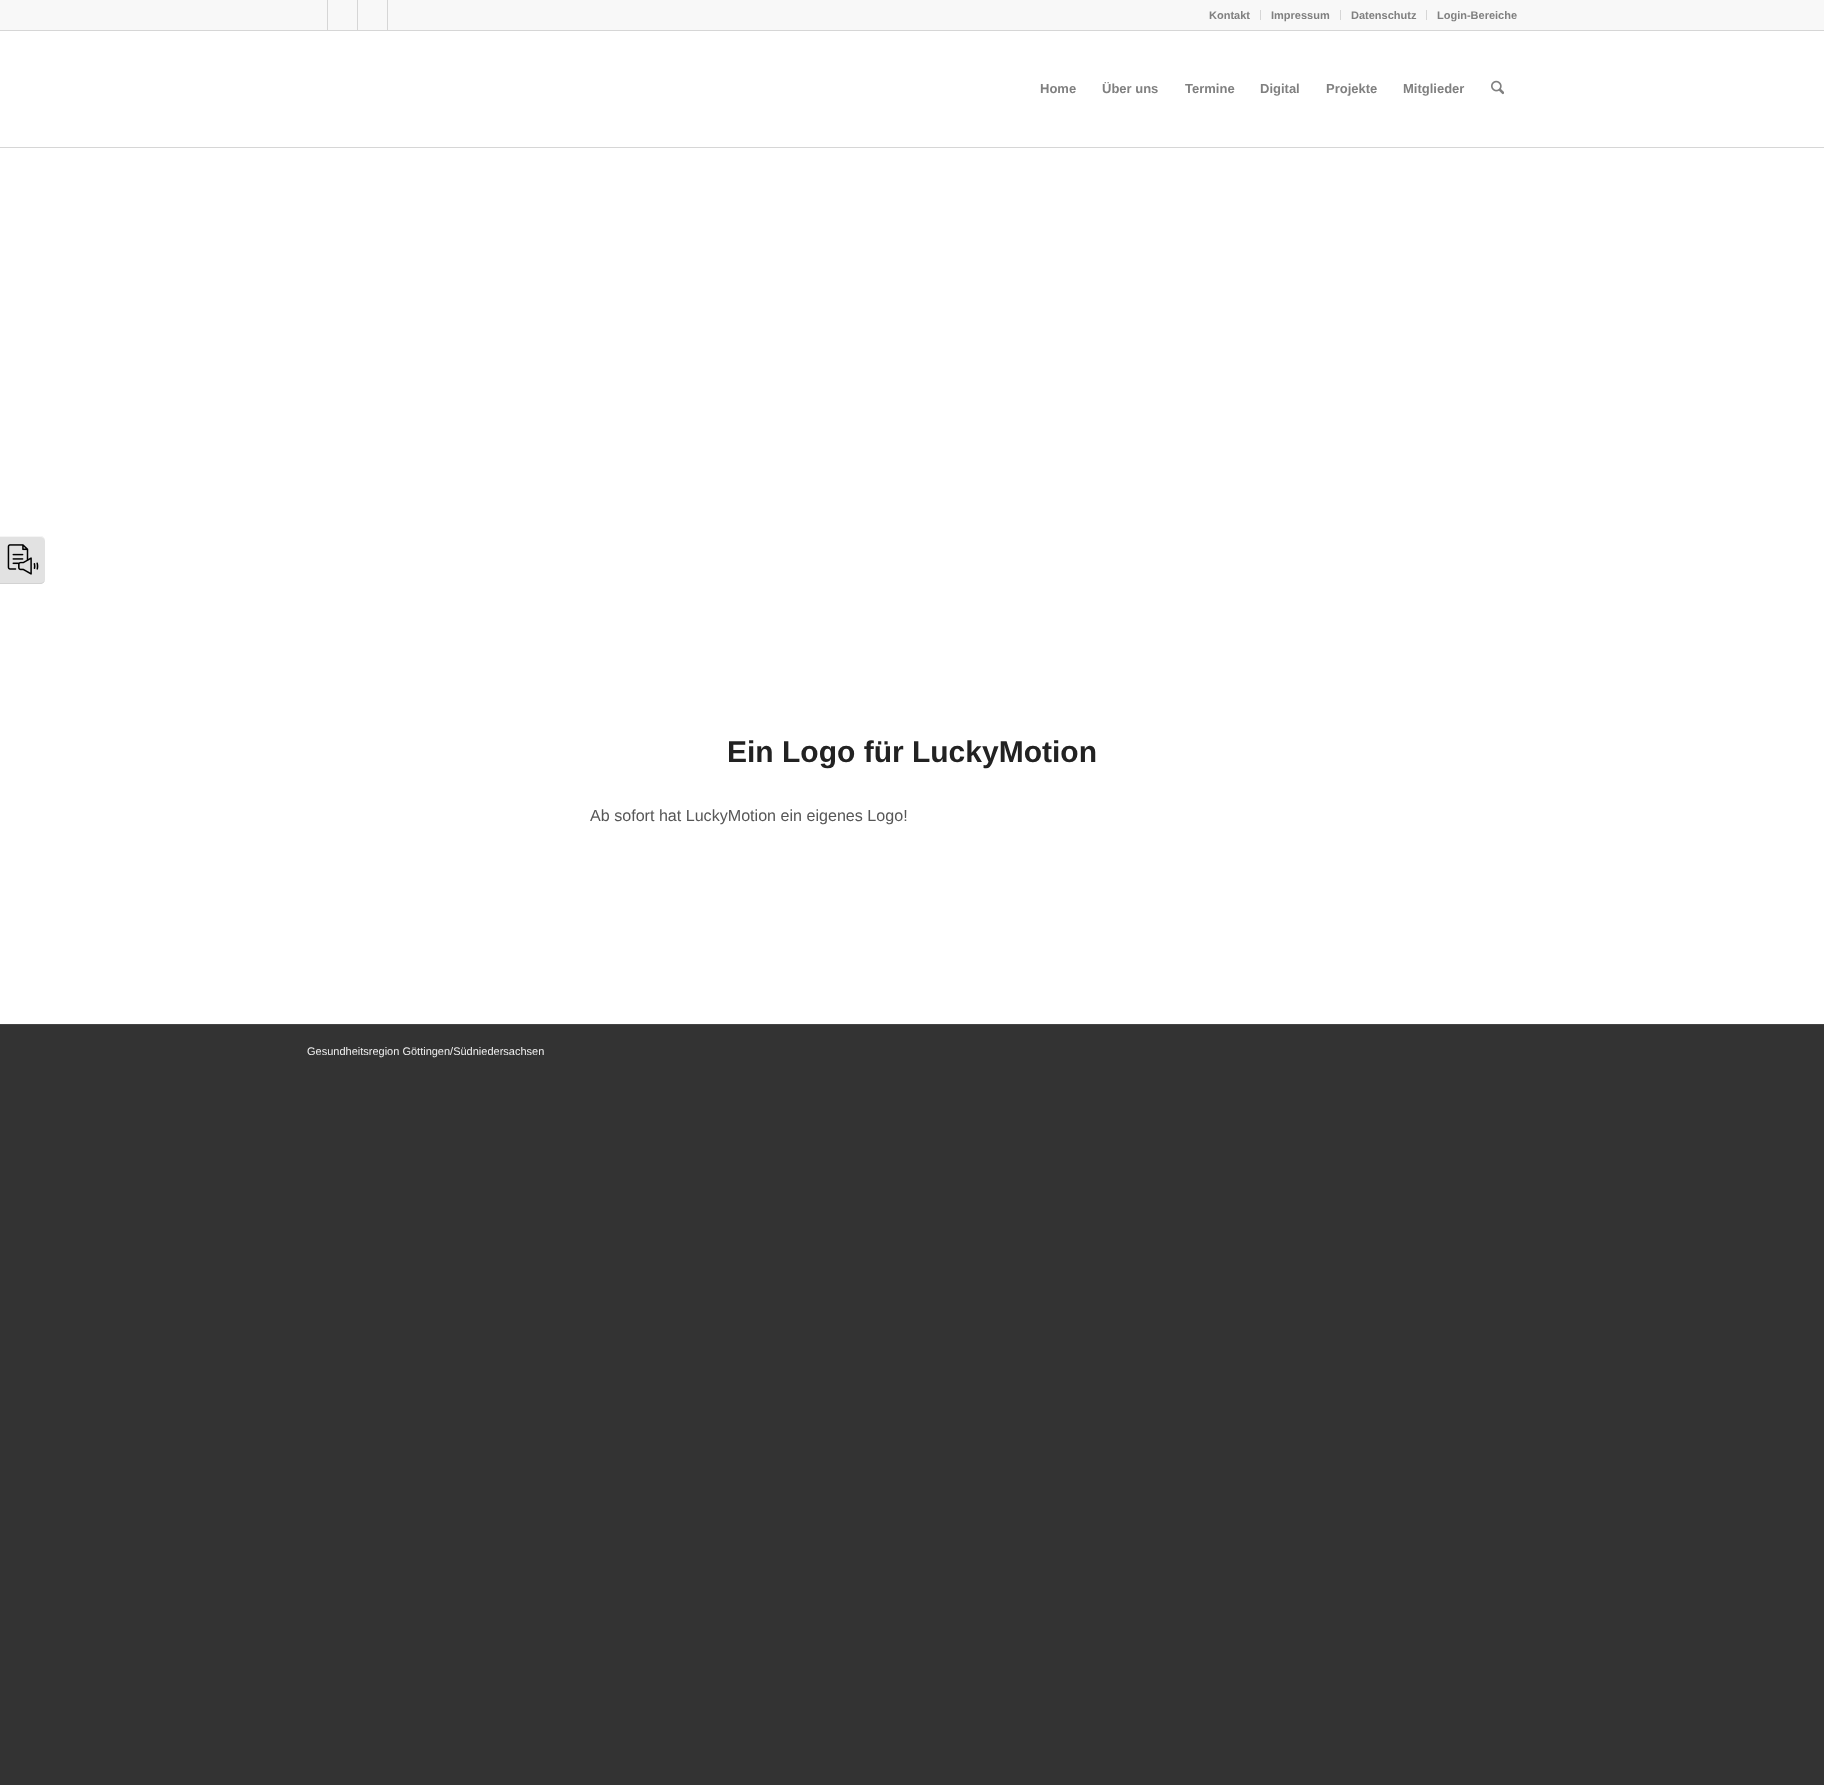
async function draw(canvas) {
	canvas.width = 1824;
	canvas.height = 1785;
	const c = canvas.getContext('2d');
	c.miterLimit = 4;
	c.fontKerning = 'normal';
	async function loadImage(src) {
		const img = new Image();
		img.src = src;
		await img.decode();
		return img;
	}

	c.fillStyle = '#333';
	c.fillRect(0, 0, 1824, 1785);
	c.fillStyle = '#fff';
	c.fillRect(0, 148, 1824, 876);
	c.fillStyle = '#e2e2e2';
	c.beginPath();
	c.roundRect(0, 536, 45, 48, [0, 5, 5, 0]);
	c.fill();
	c.fillStyle = '#f5f5f5';
	c.beginPath();
	c.moveTo(0, 536);
	c.lineTo(0, 537);
	c.lineTo(40, 537);
	c.bezierCurveTo(43, 537, 45, 539, 45, 541);
	c.bezierCurveTo(45, 538, 43, 536, 40, 536);
	c.closePath();
	c.fill();
	c.fillStyle = '#d2d2d2';
	c.beginPath();
	c.moveTo(40, 584);
	c.bezierCurveTo(43, 584, 45, 582, 45, 579);
	c.bezierCurveTo(45, 581, 43, 583, 40, 583);
	c.lineTo(0, 583);
	c.lineTo(0, 584);
	c.closePath();
	c.fill();
	c.drawImage(await loadImage('img1.png'), 7, 544, 32, 31);
	for (const [x, y, w, h, color] of [
		[0, 31, 1824, 116, '#fff'],
		[0, 0, 1824, 30, '#f8f8f8'],
		[0, 30, 1824, 1, '#d6d6d6'],
		[327, 0, 1, 30, '#d6d6d6'],
		[357, 0, 1, 30, '#d6d6d6'],
		[387, 0, 1, 30, '#d6d6d6'],
		[1260, 10, 1, 10, '#d6d6d6'],
	]) {
		c.fillStyle = color;
		c.fillRect(x, y, w, h);
	}
	c.font = 'bold 11px Liberation Sans';
	c.fillStyle = '#808080';
	c.fillText('Kontakt', 1209, 19);
	c.fillStyle = '#d6d6d6';
	c.fillRect(1340, 10, 1, 10);
	c.fillStyle = '#808080';
	c.fillText('Impressum', 1271, 19);
	c.fillStyle = '#d6d6d6';
	c.fillRect(1426, 10, 1, 10);
	c.fillStyle = '#808080';
	c.fillText('Datenschutz', 1351, 19);
	c.fillText('Login-Bereiche', 1437, 19);
	c.fillStyle = '#d6d6d6';
	c.fillRect(0, 147, 1824, 1);
	c.font = 'bold 13px Liberation Sans';
	c.fillStyle = '#808080';
	for (const [text, x, y] of [
		['Home', 1040, 93],
		['Über uns', 1102, 93],
		['Termine', 1185, 93],
		['Digital', 1260, 93],
		['Projekte', 1326, 93],
		['Mitglieder', 1403, 93],
	]) {
		c.fillText(text, x, y);
	}
	c.drawImage(await loadImage('img2.png'), 1491, 80, 13, 15);
	c.font = 'bold 30px Liberation Sans';
	c.fillStyle = '#222';
	c.fillText('Ein Logo für LuckyMotion', 727, 762);
	c.font = '16.1px Liberation Sans';
	c.fillStyle = '#575757';
	c.fillText('Ab sofort hat LuckyMotion ein eigenes Logo!', 590, 821);
	c.fillStyle = '#444';
	c.fillRect(0, 1024, 1824, 1);
	c.font = '11px Liberation Sans';
	c.fillStyle = '#eee';
	c.fillText('Gesundheitsregion Göttingen/Südniedersachsen', 307, 1055);
}

draw(document.querySelector('canvas'));
